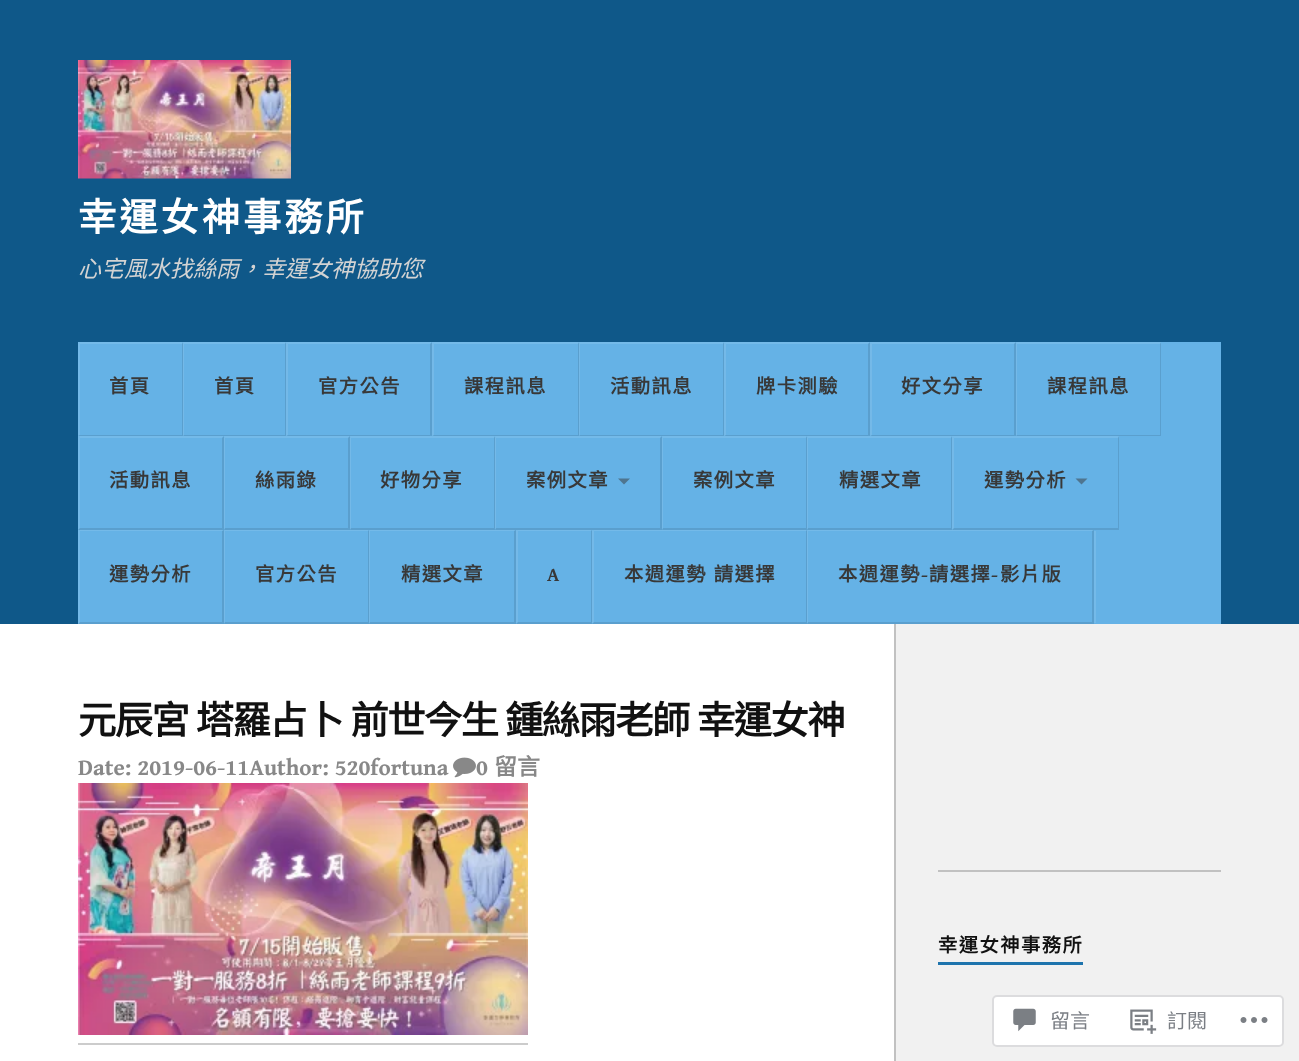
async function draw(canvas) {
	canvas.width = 1299;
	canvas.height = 1061;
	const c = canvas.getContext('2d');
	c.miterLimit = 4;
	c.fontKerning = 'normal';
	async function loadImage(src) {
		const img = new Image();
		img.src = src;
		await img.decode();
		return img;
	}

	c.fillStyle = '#f1f1f1';
	c.fillRect(0, 0, 1299, 1061);
	c.fillStyle = '#0f5889';
	c.fillRect(0, 0, 1299, 624);
	c.drawImage(await loadImage('img1.png'), 78, 60, 213, 119);
	c.letterSpacing = '3px';
	c.font = 'bold 38.25px Noto Sans CJK TC';
	c.fillStyle = '#fff';
	c.fillText('幸運女神事務所', 78, 231);
	c.letterSpacing = '0px';
	c.font = 'italic 23px Noto Sans CJK TC';
	c.fillStyle = '#d3d3d3';
	c.fillText('心宅風水找絲雨，幸運女神協助您', 78, 277);
	c.fillStyle = '#65b2e6';
	c.fillRect(78, 342, 1143, 282);
	c.fillStyle = '#74bae9';
	c.beginPath();
	c.moveTo(78, 342);
	c.lineTo(183, 342);
	c.lineTo(182, 344);
	c.lineTo(80, 344);
	c.closePath();
	c.fill();
	c.fillStyle = '#0000001a';
	c.beginPath();
	c.moveTo(183, 342);
	c.lineTo(183, 436);
	c.lineTo(182, 435);
	c.lineTo(182, 344);
	c.closePath();
	c.fill();
	c.beginPath();
	c.moveTo(183, 436);
	c.lineTo(78, 436);
	c.lineTo(80, 435);
	c.lineTo(182, 435);
	c.closePath();
	c.fill();
	c.fillStyle = '#ffffff1a';
	c.beginPath();
	c.moveTo(78, 436);
	c.lineTo(78, 342);
	c.lineTo(80, 344);
	c.lineTo(80, 435);
	c.closePath();
	c.fill();
	c.letterSpacing = '1.5px';
	c.font = 'bold 19.25px Noto Sans CJK TC';
	c.fillStyle = '#383838';
	c.fillText('首頁', 109, 393);
	c.fillStyle = '#74bae9';
	c.beginPath();
	c.moveTo(183, 342);
	c.lineTo(286, 342);
	c.lineTo(285, 344);
	c.lineTo(184, 344);
	c.closePath();
	c.fill();
	c.fillStyle = '#0000001a';
	c.beginPath();
	c.moveTo(286, 342);
	c.lineTo(286, 436);
	c.lineTo(285, 435);
	c.lineTo(285, 344);
	c.closePath();
	c.fill();
	c.beginPath();
	c.moveTo(286, 436);
	c.lineTo(183, 436);
	c.lineTo(184, 435);
	c.lineTo(285, 435);
	c.closePath();
	c.fill();
	c.fillStyle = '#ffffff1a';
	c.beginPath();
	c.moveTo(183, 436);
	c.lineTo(183, 342);
	c.lineTo(184, 344);
	c.lineTo(184, 435);
	c.closePath();
	c.fill();
	c.fillStyle = '#383838';
	c.fillText('首頁', 214, 393);
	c.fillStyle = '#74bae9';
	c.beginPath();
	c.moveTo(286, 342);
	c.lineTo(432, 342);
	c.lineTo(430, 344);
	c.lineTo(288, 344);
	c.closePath();
	c.fill();
	c.fillStyle = '#0000001a';
	c.beginPath();
	c.moveTo(432, 342);
	c.lineTo(432, 436);
	c.lineTo(430, 435);
	c.lineTo(430, 344);
	c.closePath();
	c.fill();
	c.beginPath();
	c.moveTo(432, 436);
	c.lineTo(286, 436);
	c.lineTo(288, 435);
	c.lineTo(430, 435);
	c.closePath();
	c.fill();
	c.fillStyle = '#ffffff1a';
	c.beginPath();
	c.moveTo(286, 436);
	c.lineTo(286, 342);
	c.lineTo(288, 344);
	c.lineTo(288, 435);
	c.closePath();
	c.fill();
	c.fillStyle = '#383838';
	c.fillText('官方公告', 318, 393);
	c.fillStyle = '#74bae9';
	c.beginPath();
	c.moveTo(432, 342);
	c.lineTo(579, 342);
	c.lineTo(578, 344);
	c.lineTo(434, 344);
	c.closePath();
	c.fill();
	c.fillStyle = '#0000001a';
	c.beginPath();
	c.moveTo(579, 342);
	c.lineTo(579, 436);
	c.lineTo(578, 435);
	c.lineTo(578, 344);
	c.closePath();
	c.fill();
	c.beginPath();
	c.moveTo(579, 436);
	c.lineTo(432, 436);
	c.lineTo(434, 435);
	c.lineTo(578, 435);
	c.closePath();
	c.fill();
	c.fillStyle = '#ffffff1a';
	c.beginPath();
	c.moveTo(432, 436);
	c.lineTo(432, 342);
	c.lineTo(434, 344);
	c.lineTo(434, 435);
	c.closePath();
	c.fill();
	c.fillStyle = '#383838';
	c.fillText('課程訊息', 464, 393);
	c.fillStyle = '#74bae9';
	c.beginPath();
	c.moveTo(579, 342);
	c.lineTo(724, 342);
	c.lineTo(723, 344);
	c.lineTo(580, 344);
	c.closePath();
	c.fill();
	c.fillStyle = '#0000001a';
	c.beginPath();
	c.moveTo(724, 342);
	c.lineTo(724, 436);
	c.lineTo(723, 435);
	c.lineTo(723, 344);
	c.closePath();
	c.fill();
	c.beginPath();
	c.moveTo(724, 436);
	c.lineTo(579, 436);
	c.lineTo(580, 435);
	c.lineTo(723, 435);
	c.closePath();
	c.fill();
	c.fillStyle = '#ffffff1a';
	c.beginPath();
	c.moveTo(579, 436);
	c.lineTo(579, 342);
	c.lineTo(580, 344);
	c.lineTo(580, 435);
	c.closePath();
	c.fill();
	c.fillStyle = '#383838';
	c.fillText('活動訊息', 610, 393);
	c.fillStyle = '#74bae9';
	c.beginPath();
	c.moveTo(724, 342);
	c.lineTo(870, 342);
	c.lineTo(868, 344);
	c.lineTo(726, 344);
	c.closePath();
	c.fill();
	c.fillStyle = '#0000001a';
	c.beginPath();
	c.moveTo(870, 342);
	c.lineTo(870, 436);
	c.lineTo(868, 435);
	c.lineTo(868, 344);
	c.closePath();
	c.fill();
	c.beginPath();
	c.moveTo(870, 436);
	c.lineTo(724, 436);
	c.lineTo(726, 435);
	c.lineTo(868, 435);
	c.closePath();
	c.fill();
	c.fillStyle = '#ffffff1a';
	c.beginPath();
	c.moveTo(724, 436);
	c.lineTo(724, 342);
	c.lineTo(726, 344);
	c.lineTo(726, 435);
	c.closePath();
	c.fill();
	c.fillStyle = '#383838';
	c.fillText('牌卡測驗', 756, 393);
	c.fillStyle = '#74bae9';
	c.beginPath();
	c.moveTo(870, 342);
	c.lineTo(1016, 342);
	c.lineTo(1014, 344);
	c.lineTo(872, 344);
	c.closePath();
	c.fill();
	c.fillStyle = '#0000001a';
	c.beginPath();
	c.moveTo(1016, 342);
	c.lineTo(1016, 436);
	c.lineTo(1014, 435);
	c.lineTo(1014, 344);
	c.closePath();
	c.fill();
	c.beginPath();
	c.moveTo(1016, 436);
	c.lineTo(870, 436);
	c.lineTo(872, 435);
	c.lineTo(1014, 435);
	c.closePath();
	c.fill();
	c.fillStyle = '#ffffff1a';
	c.beginPath();
	c.moveTo(870, 436);
	c.lineTo(870, 342);
	c.lineTo(872, 344);
	c.lineTo(872, 435);
	c.closePath();
	c.fill();
	c.fillStyle = '#383838';
	c.fillText('好文分享', 901, 393);
	c.fillStyle = '#74bae9';
	c.beginPath();
	c.moveTo(1016, 342);
	c.lineTo(1161, 342);
	c.lineTo(1160, 344);
	c.lineTo(1017, 344);
	c.closePath();
	c.fill();
	c.fillStyle = '#0000001a';
	c.beginPath();
	c.moveTo(1161, 342);
	c.lineTo(1161, 436);
	c.lineTo(1160, 435);
	c.lineTo(1160, 344);
	c.closePath();
	c.fill();
	c.beginPath();
	c.moveTo(1161, 436);
	c.lineTo(1016, 436);
	c.lineTo(1017, 435);
	c.lineTo(1160, 435);
	c.closePath();
	c.fill();
	c.fillStyle = '#ffffff1a';
	c.beginPath();
	c.moveTo(1016, 436);
	c.lineTo(1016, 342);
	c.lineTo(1017, 344);
	c.lineTo(1017, 435);
	c.closePath();
	c.fill();
	c.fillStyle = '#383838';
	c.fillText('課程訊息', 1047, 393);
	c.fillStyle = '#74bae9';
	c.beginPath();
	c.moveTo(78, 436);
	c.lineTo(224, 436);
	c.lineTo(222, 438);
	c.lineTo(80, 438);
	c.closePath();
	c.fill();
	c.fillStyle = '#0000001a';
	c.beginPath();
	c.moveTo(224, 436);
	c.lineTo(224, 530);
	c.lineTo(222, 528);
	c.lineTo(222, 438);
	c.closePath();
	c.fill();
	c.beginPath();
	c.moveTo(224, 530);
	c.lineTo(78, 530);
	c.lineTo(80, 528);
	c.lineTo(222, 528);
	c.closePath();
	c.fill();
	c.fillStyle = '#ffffff1a';
	c.beginPath();
	c.moveTo(78, 530);
	c.lineTo(78, 436);
	c.lineTo(80, 438);
	c.lineTo(80, 528);
	c.closePath();
	c.fill();
	c.fillStyle = '#383838';
	c.fillText('活動訊息', 109, 487);
	c.fillStyle = '#74bae9';
	c.beginPath();
	c.moveTo(224, 436);
	c.lineTo(350, 436);
	c.lineTo(348, 438);
	c.lineTo(225, 438);
	c.closePath();
	c.fill();
	c.fillStyle = '#0000001a';
	c.beginPath();
	c.moveTo(350, 436);
	c.lineTo(350, 530);
	c.lineTo(348, 528);
	c.lineTo(348, 438);
	c.closePath();
	c.fill();
	c.beginPath();
	c.moveTo(350, 530);
	c.lineTo(224, 530);
	c.lineTo(225, 528);
	c.lineTo(348, 528);
	c.closePath();
	c.fill();
	c.fillStyle = '#ffffff1a';
	c.beginPath();
	c.moveTo(224, 530);
	c.lineTo(224, 436);
	c.lineTo(225, 438);
	c.lineTo(225, 528);
	c.closePath();
	c.fill();
	c.fillStyle = '#383838';
	c.fillText('絲雨錄', 255, 487);
	c.fillStyle = '#74bae9';
	c.beginPath();
	c.moveTo(350, 436);
	c.lineTo(495, 436);
	c.lineTo(494, 438);
	c.lineTo(351, 438);
	c.closePath();
	c.fill();
	c.fillStyle = '#0000001a';
	c.beginPath();
	c.moveTo(495, 436);
	c.lineTo(495, 530);
	c.lineTo(494, 528);
	c.lineTo(494, 438);
	c.closePath();
	c.fill();
	c.beginPath();
	c.moveTo(495, 530);
	c.lineTo(350, 530);
	c.lineTo(351, 528);
	c.lineTo(494, 528);
	c.closePath();
	c.fill();
	c.fillStyle = '#ffffff1a';
	c.beginPath();
	c.moveTo(350, 530);
	c.lineTo(350, 436);
	c.lineTo(351, 438);
	c.lineTo(351, 528);
	c.closePath();
	c.fill();
	c.fillStyle = '#383838';
	c.fillText('好物分享', 380, 487);
	c.fillStyle = '#74bae9';
	c.beginPath();
	c.moveTo(495, 436);
	c.lineTo(662, 436);
	c.lineTo(660, 438);
	c.lineTo(496, 438);
	c.closePath();
	c.fill();
	c.fillStyle = '#0000001a';
	c.beginPath();
	c.moveTo(662, 436);
	c.lineTo(662, 530);
	c.lineTo(660, 528);
	c.lineTo(660, 438);
	c.closePath();
	c.fill();
	c.beginPath();
	c.moveTo(662, 530);
	c.lineTo(495, 530);
	c.lineTo(496, 528);
	c.lineTo(660, 528);
	c.closePath();
	c.fill();
	c.fillStyle = '#ffffff1a';
	c.beginPath();
	c.moveTo(495, 530);
	c.lineTo(495, 436);
	c.lineTo(496, 438);
	c.lineTo(496, 528);
	c.closePath();
	c.fill();
	c.fillStyle = '#383838';
	c.fillText('案例文章', 526, 487);
	c.fillStyle = '#4f758f';
	c.beginPath();
	c.moveTo(618, 478.5);
	c.lineTo(630, 478.5);
	c.lineTo(624, 484.5);
	c.closePath();
	c.fill();
	c.fillStyle = '#74bae9';
	c.beginPath();
	c.moveTo(662, 436);
	c.lineTo(807, 436);
	c.lineTo(806, 438);
	c.lineTo(663, 438);
	c.closePath();
	c.fill();
	c.fillStyle = '#0000001a';
	c.beginPath();
	c.moveTo(807, 436);
	c.lineTo(807, 530);
	c.lineTo(806, 528);
	c.lineTo(806, 438);
	c.closePath();
	c.fill();
	c.beginPath();
	c.moveTo(807, 530);
	c.lineTo(662, 530);
	c.lineTo(663, 528);
	c.lineTo(806, 528);
	c.closePath();
	c.fill();
	c.fillStyle = '#ffffff1a';
	c.beginPath();
	c.moveTo(662, 530);
	c.lineTo(662, 436);
	c.lineTo(663, 438);
	c.lineTo(663, 528);
	c.closePath();
	c.fill();
	c.fillStyle = '#383838';
	c.fillText('案例文章', 693, 487);
	c.fillStyle = '#74bae9';
	c.beginPath();
	c.moveTo(807, 436);
	c.lineTo(952, 436);
	c.lineTo(951, 438);
	c.lineTo(808, 438);
	c.closePath();
	c.fill();
	c.fillStyle = '#0000001a';
	c.beginPath();
	c.moveTo(952, 436);
	c.lineTo(952, 530);
	c.lineTo(951, 528);
	c.lineTo(951, 438);
	c.closePath();
	c.fill();
	c.beginPath();
	c.moveTo(952, 530);
	c.lineTo(807, 530);
	c.lineTo(808, 528);
	c.lineTo(951, 528);
	c.closePath();
	c.fill();
	c.fillStyle = '#ffffff1a';
	c.beginPath();
	c.moveTo(807, 530);
	c.lineTo(807, 436);
	c.lineTo(808, 438);
	c.lineTo(808, 528);
	c.closePath();
	c.fill();
	c.fillStyle = '#383838';
	c.fillText('精選文章', 839, 487);
	c.fillStyle = '#74bae9';
	c.beginPath();
	c.moveTo(952, 436);
	c.lineTo(1119, 436);
	c.lineTo(1118, 438);
	c.lineTo(954, 438);
	c.closePath();
	c.fill();
	c.fillStyle = '#0000001a';
	c.beginPath();
	c.moveTo(1119, 436);
	c.lineTo(1119, 530);
	c.lineTo(1118, 528);
	c.lineTo(1118, 438);
	c.closePath();
	c.fill();
	c.beginPath();
	c.moveTo(1119, 530);
	c.lineTo(952, 530);
	c.lineTo(954, 528);
	c.lineTo(1118, 528);
	c.closePath();
	c.fill();
	c.fillStyle = '#ffffff1a';
	c.beginPath();
	c.moveTo(952, 530);
	c.lineTo(952, 436);
	c.lineTo(954, 438);
	c.lineTo(954, 528);
	c.closePath();
	c.fill();
	c.fillStyle = '#383838';
	c.fillText('運勢分析', 984, 487);
	c.fillStyle = '#4f758f';
	c.beginPath();
	c.moveTo(1075.5, 478.5);
	c.lineTo(1087.5, 478.5);
	c.lineTo(1081.5, 484.5);
	c.closePath();
	c.fill();
	c.fillStyle = '#74bae9';
	c.beginPath();
	c.moveTo(78, 530);
	c.lineTo(224, 530);
	c.lineTo(222, 531);
	c.lineTo(80, 531);
	c.closePath();
	c.fill();
	c.fillStyle = '#0000001a';
	c.beginPath();
	c.moveTo(224, 530);
	c.lineTo(224, 624);
	c.lineTo(222, 622);
	c.lineTo(222, 531);
	c.closePath();
	c.fill();
	c.beginPath();
	c.moveTo(224, 624);
	c.lineTo(78, 624);
	c.lineTo(80, 622);
	c.lineTo(222, 622);
	c.closePath();
	c.fill();
	c.fillStyle = '#ffffff1a';
	c.beginPath();
	c.moveTo(78, 624);
	c.lineTo(78, 530);
	c.lineTo(80, 531);
	c.lineTo(80, 622);
	c.closePath();
	c.fill();
	c.fillStyle = '#383838';
	c.fillText('運勢分析', 109, 581);
	c.fillStyle = '#74bae9';
	c.beginPath();
	c.moveTo(224, 530);
	c.lineTo(369, 530);
	c.lineTo(368, 531);
	c.lineTo(225, 531);
	c.closePath();
	c.fill();
	c.fillStyle = '#0000001a';
	c.beginPath();
	c.moveTo(369, 530);
	c.lineTo(369, 624);
	c.lineTo(368, 622);
	c.lineTo(368, 531);
	c.closePath();
	c.fill();
	c.beginPath();
	c.moveTo(369, 624);
	c.lineTo(224, 624);
	c.lineTo(225, 622);
	c.lineTo(368, 622);
	c.closePath();
	c.fill();
	c.fillStyle = '#ffffff1a';
	c.beginPath();
	c.moveTo(224, 624);
	c.lineTo(224, 530);
	c.lineTo(225, 531);
	c.lineTo(225, 622);
	c.closePath();
	c.fill();
	c.fillStyle = '#383838';
	c.fillText('官方公告', 255, 581);
	c.fillStyle = '#74bae9';
	c.beginPath();
	c.moveTo(369, 530);
	c.lineTo(516, 530);
	c.lineTo(514, 531);
	c.lineTo(370, 531);
	c.closePath();
	c.fill();
	c.fillStyle = '#0000001a';
	c.beginPath();
	c.moveTo(516, 530);
	c.lineTo(516, 624);
	c.lineTo(514, 622);
	c.lineTo(514, 531);
	c.closePath();
	c.fill();
	c.beginPath();
	c.moveTo(516, 624);
	c.lineTo(369, 624);
	c.lineTo(370, 622);
	c.lineTo(514, 622);
	c.closePath();
	c.fill();
	c.fillStyle = '#ffffff1a';
	c.beginPath();
	c.moveTo(369, 624);
	c.lineTo(369, 530);
	c.lineTo(370, 531);
	c.lineTo(370, 622);
	c.closePath();
	c.fill();
	c.fillStyle = '#383838';
	c.fillText('精選文章', 401, 581);
	c.fillStyle = '#74bae9';
	c.beginPath();
	c.moveTo(516, 530);
	c.lineTo(592, 530);
	c.lineTo(591, 531);
	c.lineTo(518, 531);
	c.closePath();
	c.fill();
	c.fillStyle = '#0000001a';
	c.beginPath();
	c.moveTo(592, 530);
	c.lineTo(592, 624);
	c.lineTo(591, 622);
	c.lineTo(591, 531);
	c.closePath();
	c.fill();
	c.beginPath();
	c.moveTo(592, 624);
	c.lineTo(516, 624);
	c.lineTo(518, 622);
	c.lineTo(591, 622);
	c.closePath();
	c.fill();
	c.fillStyle = '#ffffff1a';
	c.beginPath();
	c.moveTo(516, 624);
	c.lineTo(516, 530);
	c.lineTo(518, 531);
	c.lineTo(518, 622);
	c.closePath();
	c.fill();
	c.font = 'bold 19.25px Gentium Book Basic';
	c.fillStyle = '#383838';
	c.fillText('A', 547, 581);
	c.fillStyle = '#74bae9';
	c.beginPath();
	c.moveTo(592, 530);
	c.lineTo(807, 530);
	c.lineTo(806, 531);
	c.lineTo(594, 531);
	c.closePath();
	c.fill();
	c.fillStyle = '#0000001a';
	c.beginPath();
	c.moveTo(807, 530);
	c.lineTo(807, 624);
	c.lineTo(806, 622);
	c.lineTo(806, 531);
	c.closePath();
	c.fill();
	c.beginPath();
	c.moveTo(807, 624);
	c.lineTo(592, 624);
	c.lineTo(594, 622);
	c.lineTo(806, 622);
	c.closePath();
	c.fill();
	c.fillStyle = '#ffffff1a';
	c.beginPath();
	c.moveTo(592, 624);
	c.lineTo(592, 530);
	c.lineTo(594, 531);
	c.lineTo(594, 622);
	c.closePath();
	c.fill();
	c.wordSpacing = '1px';
	c.font = 'bold 19.25px Noto Sans CJK TC';
	c.fillStyle = '#383838';
	c.fillText('本週運勢 請選擇', 624, 581);
	c.fillStyle = '#74bae9';
	c.beginPath();
	c.moveTo(807, 530);
	c.lineTo(1094, 530);
	c.lineTo(1092, 531);
	c.lineTo(808, 531);
	c.closePath();
	c.fill();
	c.fillStyle = '#0000001a';
	c.beginPath();
	c.moveTo(1094, 530);
	c.lineTo(1094, 624);
	c.lineTo(1092, 622);
	c.lineTo(1092, 531);
	c.closePath();
	c.fill();
	c.beginPath();
	c.moveTo(1094, 624);
	c.lineTo(807, 624);
	c.lineTo(808, 622);
	c.lineTo(1092, 622);
	c.closePath();
	c.fill();
	c.fillStyle = '#ffffff1a';
	c.beginPath();
	c.moveTo(807, 624);
	c.lineTo(807, 530);
	c.lineTo(808, 531);
	c.lineTo(808, 622);
	c.closePath();
	c.fill();
	c.wordSpacing = '0px';
	c.fillStyle = '#383838';
	c.fillText('本週運勢', 838, 581);
	c.font = 'bold 19.25px Gentium Book Basic';
	c.fillText('-', 921, 581);
	c.font = 'bold 19.25px Noto Sans CJK TC';
	c.fillText('請選擇', 929, 581);
	c.font = 'bold 19.25px Gentium Book Basic';
	c.fillText('-', 991, 581);
	c.font = 'bold 19.25px Noto Sans CJK TC';
	c.fillText('影片版', 1000, 581);
	c.fillStyle = '#74bae9';
	c.fillRect(1094, 531, 2, 92);
	c.fillStyle = '#fff';
	c.fillRect(0, 624, 894, 437);
	c.letterSpacing = '-1.5px';
	c.wordSpacing = '0.5px';
	c.font = 'bold 38.25px Noto Sans CJK TC';
	c.fillStyle = '#111';
	c.fillText('元辰宮 塔羅占卜 前世今生 鍾絲雨老師', 78, 734);
	c.wordSpacing = '0px';
	c.fillText('幸運女神', 697, 734);
	c.letterSpacing = '0px';
	c.font = 'bold 23px Gentium Book Basic';
	c.fillStyle = '#888';
	c.fillText('Date: 2019-06-11Author: 520fortuna', 78, 775);
	c.drawImage(await loadImage('img2.png'), 453, 757, 23, 21);
	c.fillText('0', 476, 775);
	c.font = 'bold 23px Noto Sans CJK TC';
	c.fillText('留言', 494, 775);
	c.drawImage(await loadImage('img3.png'), 78, 783, 450, 252);
	for (const [x, y, w, h, color] of [
		[78, 1043, 450, 2, '#ccc'],
		[894, 624, 2, 437, '#c1c1c1'],
		[938, 870, 283, 2, '#c1c1c1'],
		[938, 962, 145, 3, '#1e74ad'],
	]) {
		c.fillStyle = color;
		c.fillRect(x, y, w, h);
	}
	c.letterSpacing = '1.5px';
	c.font = 'bold 19.25px Noto Sans CJK TC';
	c.fillStyle = '#111';
	c.fillText('幸運女神事務所', 938, 952);
	c.fillStyle = '#fff';
	c.beginPath();
	c.roundRect(993, 996, 290, 50, 4);
	c.fill();
	c.strokeStyle = '#dcdcde';
	c.lineWidth = 2;
	c.stroke();
	c.drawImage(await loadImage('img4.png'), 1013, 1008, 23, 24);
	c.letterSpacing = '0px';
	c.font = '20px Noto Sans CJK TC';
	c.fillStyle = '#7a7e84';
	c.fillText('留言', 1050, 1028);
	c.drawImage(await loadImage('img5.png'), 1130, 1009, 27, 25);
	c.fillText('訂閱', 1167, 1028);
	c.drawImage(await loadImage('img6.png'), 1240, 1017, 28, 6);
}

draw(document.querySelector('canvas'));
